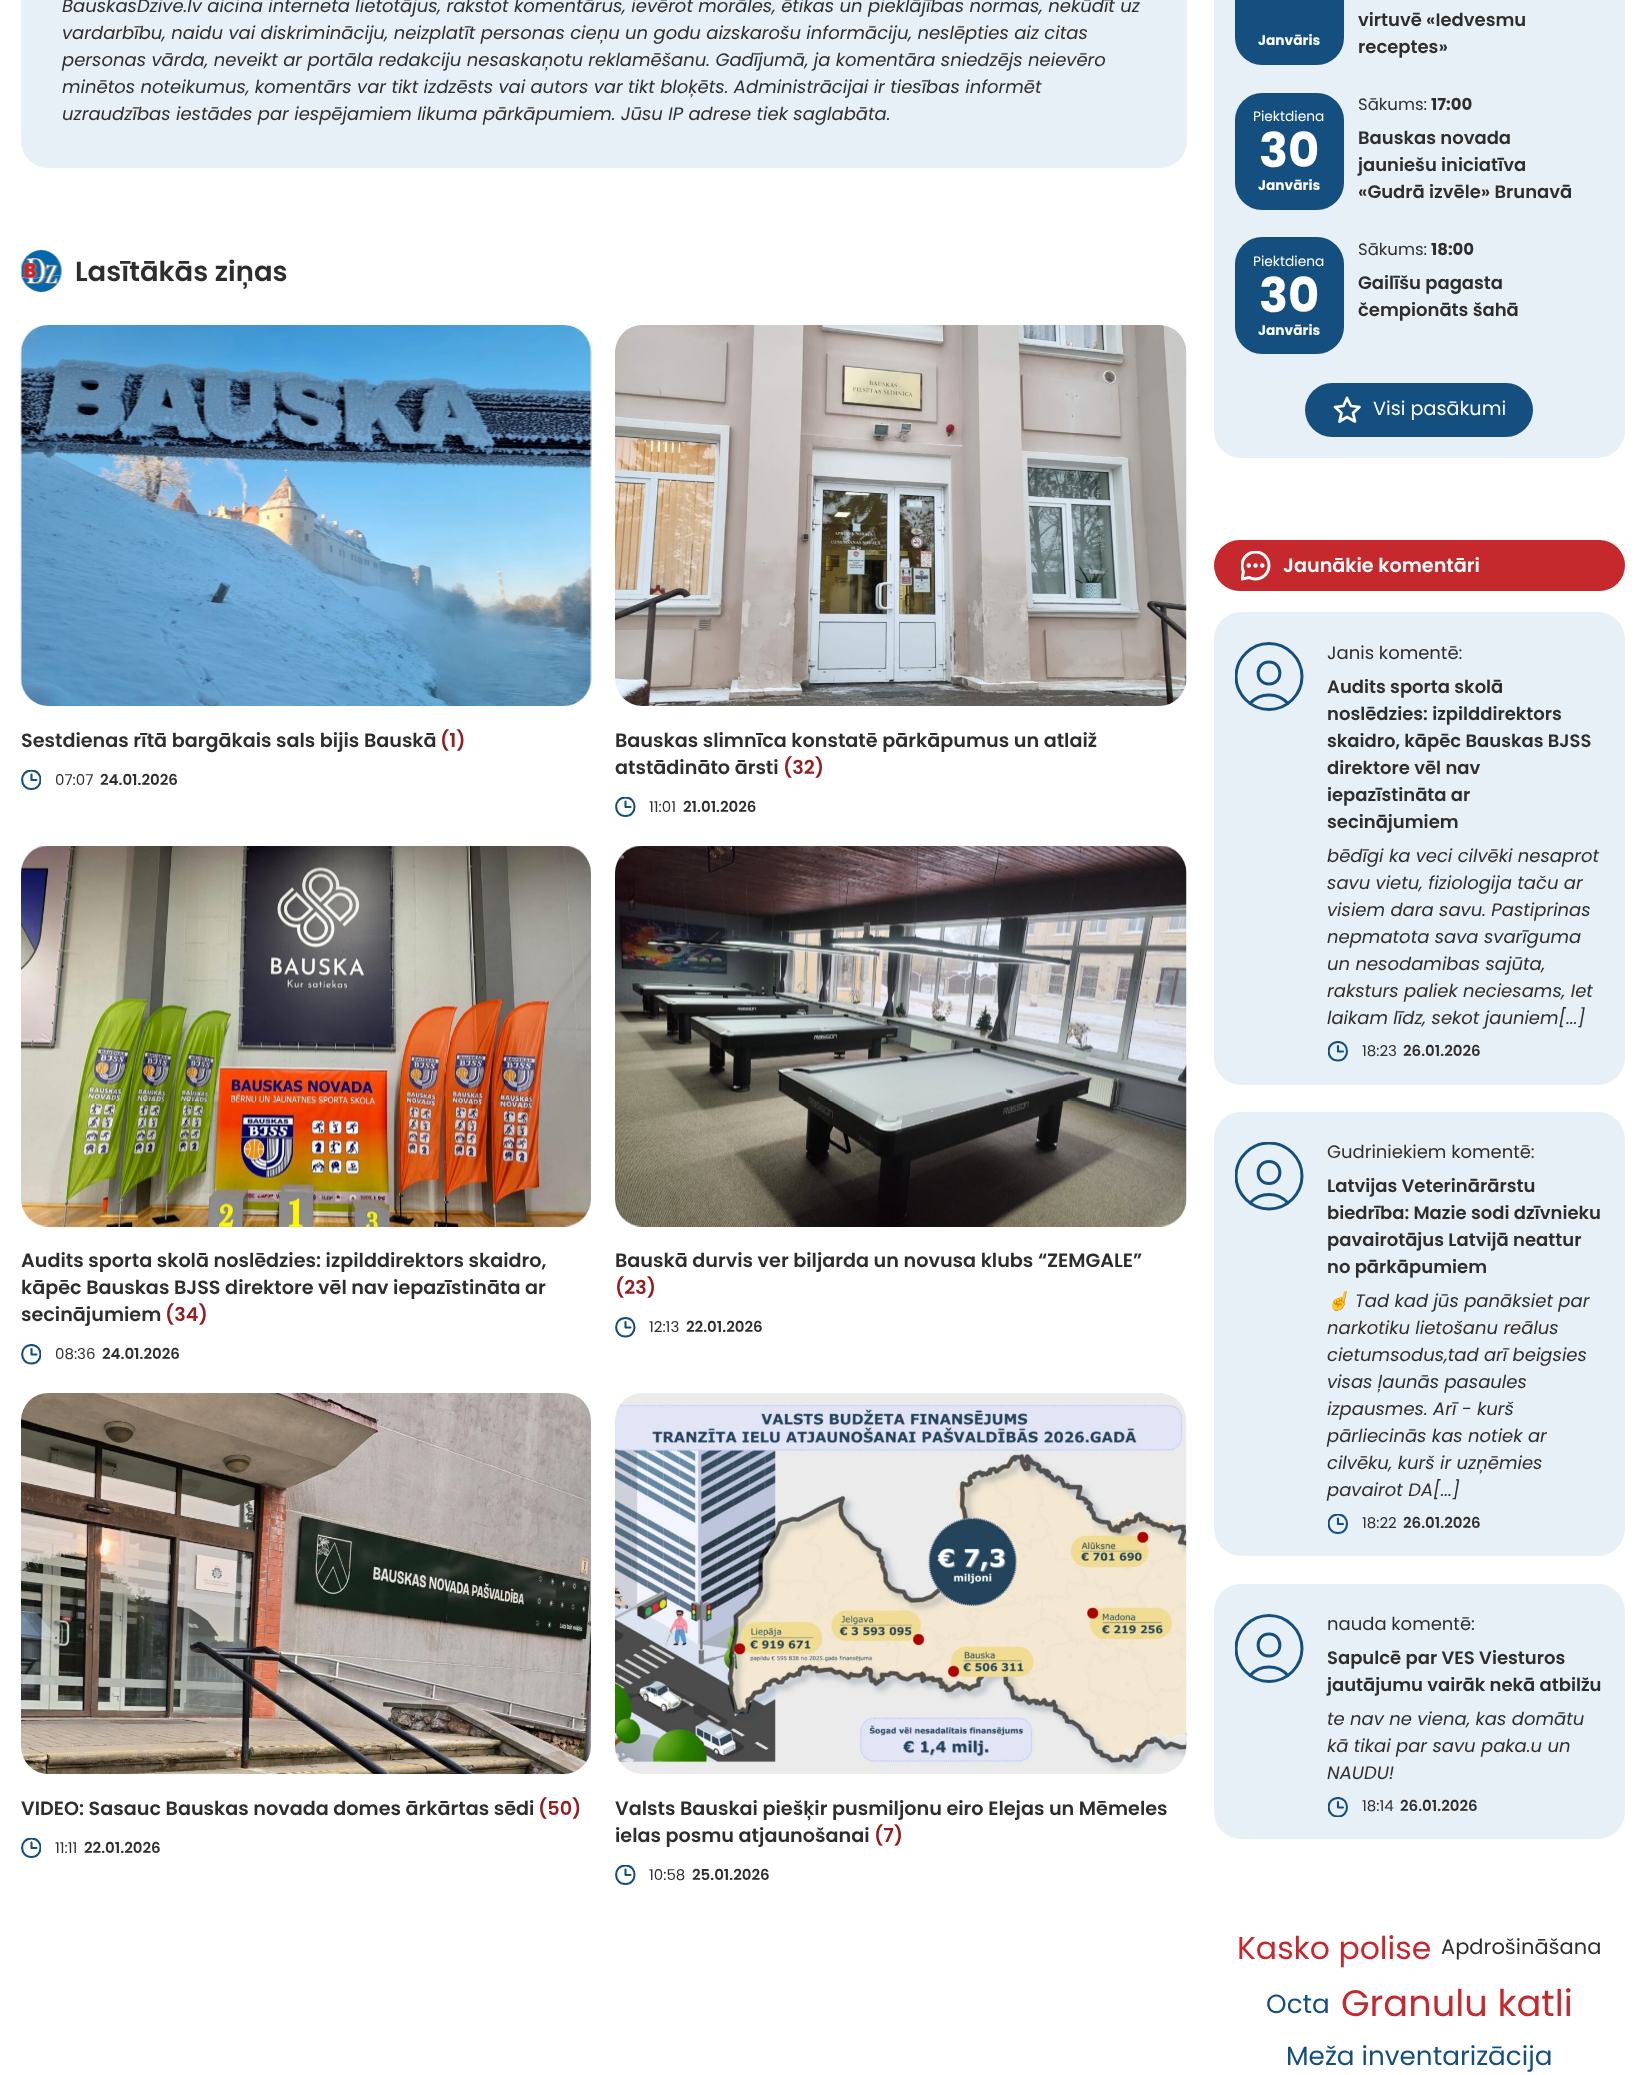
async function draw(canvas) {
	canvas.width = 1645;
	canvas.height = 2075;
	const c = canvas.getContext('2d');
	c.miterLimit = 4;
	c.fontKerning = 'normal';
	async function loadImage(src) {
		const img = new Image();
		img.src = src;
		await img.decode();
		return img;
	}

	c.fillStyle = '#fff';
	c.fillRect(0, 0, 1645, 2075);
	c.fillStyle = '#e8f0f7';
	c.beginPath();
	c.roundRect(21, -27, 1166, 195, 27);
	c.fill();
	c.font = 'italic 18px Poppins';
	c.fillStyle = '#2e2e2e';
	for (const [text, x, y] of [
		['BauskasDzive.lv aicina interneta lietotājus, rakstot komentārus, ievērot morāles, ētikas un pieklājības normas, nekūdīt uz', 62, 12],
		['vardarbību, naidu vai diskrimināciju, neizplatīt personas cieņu un godu aizskarošu informāciju, neslēpties aiz citas', 62, 39],
		['personas vārda, neveikt ar portāla redakciju nesaskaņotu reklamēšanu. Gadījumā, ja komentāra sniedzējs neievēro', 62, 66],
		['minētos noteikumus, komentārs var tikt izdzēsts vai autors var tikt bloķēts. Administrācijai ir tiesības informēt', 62, 93],
		['uzraudzības iestādes par iespējamiem likuma pārkāpumiem. Jūsu IP adrese tiek saglabāta.', 62, 120],
	]) {
		c.fillText(text, x, y);
	}
	c.drawImage(await loadImage('img1.png'), 21, 250, 41, 42);
	c.font = '600 27.5px Poppins';
	c.fillText('Lasītākās ziņas', 75, 281);
	c.drawImage(await loadImage('img2.png'), 20, 325, 572, 381);
	c.font = '600 19.2px Poppins';
	c.fillText('Sestdienas rītā bargākais sals bijis Bauskā', 21, 747);
	c.fillStyle = '#941f22';
	c.fillText('(1)', 440, 747);
	c.save();
	c.beginPath();
	c.rect(21, 770, 20, 21);
	c.clip();
	c.beginPath();
	c.moveTo(31.5, 774.5);
	c.lineTo(31.5, 780);
	c.lineTo(36.5, 780);
	c.moveTo(31.5, 789);
	c.bezierCurveTo(19, 789, 19, 770.5, 31.5, 770.5);
	c.bezierCurveTo(43.5, 770.5, 43.5, 789, 31.5, 789);
	c.closePath();
	c.strokeStyle = '#144f80';
	c.lineWidth = 2.1;
	c.lineCap = 'round';
	c.lineJoin = 'round';
	c.stroke();
	c.restore();
	c.font = '15px Poppins';
	c.fillStyle = '#2e2e2e';
	c.fillText('07:07', 55, 785);
	c.font = '600 15px Poppins';
	c.fillText('24.01.2026', 100, 785);
	c.drawImage(await loadImage('img3.png'), 615, 325, 572, 381);
	c.font = '600 19.2px Poppins';
	c.fillText('Bauskas slimnīca konstatē pārkāpumus un atlaiž', 615, 747);
	c.fillText('atstādināto ārsti', 615, 774);
	c.fillStyle = '#941f22';
	c.fillText('(32)', 783, 774);
	c.save();
	c.beginPath();
	c.rect(615, 797, 21, 21);
	c.clip();
	c.beginPath();
	c.moveTo(625.5, 801.5);
	c.lineTo(625.5, 807);
	c.lineTo(630.5, 807);
	c.moveTo(625.5, 816);
	c.bezierCurveTo(613, 816, 613, 797.5, 625.5, 797.5);
	c.bezierCurveTo(637.5, 797.5, 637.5, 816, 625.5, 816);
	c.closePath();
	c.strokeStyle = '#144f80';
	c.lineWidth = 2.1;
	c.lineCap = 'round';
	c.lineJoin = 'round';
	c.stroke();
	c.restore();
	c.font = '15px Poppins';
	c.fillStyle = '#2e2e2e';
	c.fillText('11:01', 649, 812);
	c.font = '600 15px Poppins';
	c.fillText('21.01.2026', 683, 812);
	c.drawImage(await loadImage('img4.png'), 21, 846, 570, 381);
	c.font = '600 19.2px Poppins';
	for (const [text, x, y] of [
		['Audits sporta skolā noslēdzies: izpilddirektors skaidro,', 21, 1267],
		['kāpēc Bauskas BJSS direktore vēl nav iepazīstināta ar', 21, 1294],
		['secinājumiem', 21, 1321],
	]) {
		c.fillText(text, x, y);
	}
	c.fillStyle = '#941f22';
	c.fillText('(34)', 165, 1321);
	c.save();
	c.beginPath();
	c.rect(21, 1344, 20, 21);
	c.clip();
	c.beginPath();
	c.moveTo(31.5, 1349);
	c.lineTo(31.5, 1354.5);
	c.lineTo(36.5, 1354.5);
	c.moveTo(31.5, 1363.5);
	c.bezierCurveTo(19, 1363.5, 19, 1345, 31.5, 1345);
	c.bezierCurveTo(43.5, 1345, 43.5, 1363.5, 31.5, 1363.5);
	c.closePath();
	c.strokeStyle = '#144f80';
	c.lineWidth = 2.1;
	c.lineCap = 'round';
	c.lineJoin = 'round';
	c.stroke();
	c.restore();
	c.font = '15px Poppins';
	c.fillStyle = '#2e2e2e';
	c.fillText('08:36', 55, 1359);
	c.font = '600 15px Poppins';
	c.fillText('24.01.2026', 102, 1359);
	c.drawImage(await loadImage('img5.png'), 615, 846, 572, 381);
	c.font = '600 19.2px Poppins';
	c.fillText('Bauskā durvis ver biljarda un novusa klubs “ZEMGALE”', 615, 1267);
	c.fillStyle = '#941f22';
	c.fillText('(23)', 615, 1294);
	c.beginPath();
	c.moveTo(625.5, 1322);
	c.lineTo(625.5, 1327.5);
	c.lineTo(630.5, 1327.5);
	c.moveTo(625.5, 1336.5);
	c.bezierCurveTo(613, 1336.5, 613, 1318, 625.5, 1318);
	c.bezierCurveTo(637.5, 1318, 637.5, 1336.5, 625.5, 1336.5);
	c.closePath();
	c.strokeStyle = '#144f80';
	c.lineWidth = 2.1;
	c.lineCap = 'round';
	c.lineJoin = 'round';
	c.stroke();
	c.font = '15px Poppins';
	c.fillStyle = '#2e2e2e';
	c.fillText('12:13', 649, 1332);
	c.font = '600 15px Poppins';
	c.fillText('22.01.2026', 686, 1332);
	c.drawImage(await loadImage('img6.png'), 21, 1393, 570, 381);
	c.font = '600 19.2px Poppins';
	c.fillText('VIDEO: Sasauc Bauskas novada domes ārkārtas sēdi', 21, 1815);
	c.fillStyle = '#941f22';
	c.fillText('(50)', 538, 1815);
	c.save();
	c.beginPath();
	c.rect(21, 1838, 20, 21);
	c.clip();
	c.beginPath();
	c.moveTo(31.5, 1842.5);
	c.lineTo(31.5, 1848);
	c.lineTo(36.5, 1848);
	c.moveTo(31.5, 1857);
	c.bezierCurveTo(19, 1857, 19, 1838.5, 31.5, 1838.5);
	c.bezierCurveTo(43.5, 1838.5, 43.5, 1857, 31.5, 1857);
	c.closePath();
	c.stroke();
	c.restore();
	c.font = '15px Poppins';
	c.fillStyle = '#2e2e2e';
	c.fillText('11:11', 55, 1853);
	c.font = '600 15px Poppins';
	c.fillText('22.01.2026', 84, 1853);
	c.drawImage(await loadImage('img7.png'), 615, 1393, 572, 381);
	c.font = '600 19.2px Poppins';
	c.fillText('Valsts Bauskai piešķir pusmiljonu eiro Elejas un Mēmeles', 615, 1815);
	c.fillText('ielas posmu atjaunošanai', 615, 1842);
	c.fillStyle = '#941f22';
	c.fillText('(7)', 874, 1842);
	c.save();
	c.beginPath();
	c.rect(615, 1865, 21, 21);
	c.clip();
	c.beginPath();
	c.moveTo(625.5, 1869.5);
	c.lineTo(625.5, 1875);
	c.lineTo(630.5, 1875);
	c.moveTo(625.5, 1884);
	c.bezierCurveTo(613, 1884, 613, 1865.5, 625.5, 1865.5);
	c.bezierCurveTo(637.5, 1865.5, 637.5, 1884, 625.5, 1884);
	c.closePath();
	c.stroke();
	c.restore();
	c.font = '15px Poppins';
	c.fillStyle = '#2e2e2e';
	c.fillText('10:58', 649, 1880);
	c.font = '600 15px Poppins';
	c.fillText('25.01.2026', 692, 1880);
	c.fillStyle = '#e8f0f7';
	c.beginPath();
	c.roundRect(1214, -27, 411, 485, 27);
	c.fill();
	c.fillStyle = '#144f80';
	c.beginPath();
	c.roundRect(1235, -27, 109, 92, 27);
	c.fill();
	c.font = 'bold 13.75px Poppins';
	c.fillStyle = '#fff';
	c.fillText('Janvāris', 1258, 45);
	c.font = '600 18px Poppins';
	c.fillStyle = '#2e2e2e';
	c.fillText('virtuvē «Iedvesmu', 1358, 26);
	c.fillText('receptes»', 1358, 53);
	c.fillStyle = '#144f80';
	c.beginPath();
	c.roundRect(1235, 93, 109, 117, 27);
	c.fill();
	c.font = '13.75px Poppins';
	c.fillStyle = '#fff';
	c.fillText('Piektdiena', 1253, 121);
	c.font = 'bold 48px Poppins';
	c.fillText('30', 1259, 167);
	c.font = 'bold 13.75px Poppins';
	c.fillText('Janvāris', 1258, 190);
	c.font = '16.5px Poppins';
	c.fillStyle = '#2e2e2e';
	c.fillText('Sākums:', 1358, 110);
	c.font = 'bold 16.5px Poppins';
	c.fillText('17:00', 1431, 110);
	c.font = '600 18px Poppins';
	for (const [text, x, y] of [
		['Bauskas novada', 1358, 144],
		['jauniešu iniciatīva', 1358, 171],
		['«Gudrā izvēle» Brunavā', 1358, 198],
	]) {
		c.fillText(text, x, y);
	}
	c.fillStyle = '#144f80';
	c.beginPath();
	c.roundRect(1235, 237, 109, 117, 27);
	c.fill();
	c.font = '13.75px Poppins';
	c.fillStyle = '#fff';
	c.fillText('Piektdiena', 1253, 266);
	c.font = 'bold 48px Poppins';
	c.fillText('30', 1259, 312);
	c.font = 'bold 13.75px Poppins';
	c.fillText('Janvāris', 1258, 335);
	c.font = '16.5px Poppins';
	c.fillStyle = '#2e2e2e';
	c.fillText('Sākums:', 1358, 255);
	c.font = 'bold 16.5px Poppins';
	c.fillText('18:00', 1431, 255);
	c.font = '600 18px Poppins';
	c.fillText('Gailīšu pagasta', 1358, 289);
	c.fillText('čempionāts šahā', 1358, 316);
	c.fillStyle = '#144f80';
	c.beginPath();
	c.roundRect(1305, 383, 228, 54, 27);
	c.fill();
	c.beginPath();
	c.moveTo(1347, 398);
	c.lineTo(1351, 406);
	c.lineTo(1359.5, 407);
	c.lineTo(1353, 413);
	c.lineTo(1355, 421.5);
	c.lineTo(1347, 417);
	c.lineTo(1339.5, 421.5);
	c.lineTo(1341.5, 413);
	c.lineTo(1335, 407);
	c.lineTo(1343.5, 406);
	c.closePath();
	c.strokeStyle = '#fff';
	c.lineWidth = 2.7;
	c.lineCap = 'butt';
	c.stroke();
	c.font = '19.2px Poppins';
	c.fillStyle = '#fff';
	c.fillText('Visi pasākumi', 1373, 415);
	c.fillStyle = '#c5292d';
	c.beginPath();
	c.roundRect(1214, 540, 411, 51, 25.5);
	c.fill();
	c.drawImage(await loadImage('img8.png'), 1241, 551, 30, 30);
	c.font = '600 19.2px Poppins';
	c.fillStyle = '#fff';
	c.fillText('Jaunākie komentāri', 1283, 572);
	c.fillStyle = '#e8f0f7';
	c.beginPath();
	c.roundRect(1214, 612, 411, 473, 27);
	c.fill();
	c.save();
	c.beginPath();
	c.rect(1235, 642, 69, 69);
	c.clip();
	c.beginPath();
	c.moveTo(1288, 703.5);
	c.bezierCurveTo(1278, 692, 1260, 692, 1250, 703.5);
	c.moveTo(1269, 709.5);
	c.bezierCurveTo(1251, 709.5, 1236, 694.5, 1236, 676.5);
	c.bezierCurveTo(1236, 658.5, 1251, 643.5, 1269, 643.5);
	c.bezierCurveTo(1287, 643.5, 1302, 658.5, 1302, 676.5);
	c.bezierCurveTo(1302, 694.5, 1287, 709.5, 1269, 709.5);
	c.closePath();
	c.moveTo(1269, 684);
	c.bezierCurveTo(1254.5, 684, 1254.5, 662, 1269, 662);
	c.bezierCurveTo(1283.5, 662, 1283.5, 684, 1269, 684);
	c.closePath();
	c.strokeStyle = '#144f80';
	c.lineWidth = 3;
	c.lineCap = 'round';
	c.stroke();
	c.restore();
	c.font = '18px Poppins';
	c.fillStyle = '#2e2e2e';
	c.fillText('Janis komentē:', 1327, 659);
	c.font = '600 18px Poppins';
	for (const [text, x, y] of [
		['Audits sporta skolā', 1327, 693],
		['noslēdzies: izpilddirektors', 1327, 720],
		['skaidro, kāpēc Bauskas BJSS', 1327, 747],
		['direktore vēl nav', 1327, 774],
		['iepazīstināta ar', 1327, 801],
		['secinājumiem', 1327, 828],
	]) {
		c.fillText(text, x, y);
	}
	c.font = 'italic 18px Poppins';
	for (const [text, x, y] of [
		['bēdīgi ka veci cilvēki nesaprot', 1327, 862],
		['savu vietu, fiziologija taču ar', 1327, 889],
		['visiem dara savu. Pastiprinas', 1327, 916],
		['nepmatota sava svarīguma', 1327, 943],
		['un nesodamibas sajūta,', 1327, 970],
		['raksturs paliek neciesams, Iet', 1327, 997],
		['laikam līdz, sekot jauniem[...]', 1327, 1024],
	]) {
		c.fillText(text, x, y);
	}
	c.save();
	c.beginPath();
	c.rect(1328, 1041, 21, 21);
	c.clip();
	c.beginPath();
	c.moveTo(1338, 1046);
	c.lineTo(1338, 1051.5);
	c.lineTo(1343, 1051.5);
	c.moveTo(1338, 1060.5);
	c.bezierCurveTo(1325.5, 1060.5, 1325.5, 1042, 1338, 1042);
	c.bezierCurveTo(1350, 1042, 1350, 1060.5, 1338, 1060.5);
	c.closePath();
	c.strokeStyle = '#144f80';
	c.lineWidth = 2.1;
	c.lineCap = 'round';
	c.stroke();
	c.restore();
	c.font = '15px Poppins';
	c.fillText('18:23', 1362, 1056);
	c.font = '600 15px Poppins';
	c.fillText('26.01.2026', 1403, 1056);
	c.fillStyle = '#e8f0f7';
	c.beginPath();
	c.roundRect(1214, 1112, 411, 444, 27);
	c.fill();
	c.save();
	c.beginPath();
	c.rect(1235, 1142, 69, 69);
	c.clip();
	c.beginPath();
	c.moveTo(1288, 1203);
	c.bezierCurveTo(1278, 1191.5, 1260, 1191.5, 1250, 1203);
	c.moveTo(1269, 1209);
	c.bezierCurveTo(1251, 1209, 1236, 1194, 1236, 1176);
	c.bezierCurveTo(1236, 1158, 1251, 1143, 1269, 1143);
	c.bezierCurveTo(1287, 1143, 1302, 1158, 1302, 1176);
	c.bezierCurveTo(1302, 1194, 1287, 1209, 1269, 1209);
	c.closePath();
	c.moveTo(1269, 1183.5);
	c.bezierCurveTo(1254.5, 1183.5, 1254.5, 1161.5, 1269, 1161.5);
	c.bezierCurveTo(1283.5, 1161.5, 1283.5, 1183.5, 1269, 1183.5);
	c.closePath();
	c.strokeStyle = '#144f80';
	c.lineWidth = 3;
	c.lineCap = 'round';
	c.stroke();
	c.restore();
	c.font = '18px Poppins';
	c.fillStyle = '#2e2e2e';
	c.fillText('Gudriniekiem komentē:', 1327, 1158);
	c.font = '600 18px Poppins';
	for (const [text, x, y] of [
		['Latvijas Veterinārārstu', 1327, 1192],
		['biedrība: Mazie sodi dzīvnieku', 1327, 1219],
		['pavairotājus Latvijā neattur', 1327, 1246],
		['no pārkāpumiem', 1327, 1273],
	]) {
		c.fillText(text, x, y);
	}
	c.font = 'italic 18px Noto Color Emoji';
	c.fillText('☝️', 1327, 1307);
	c.font = 'italic 18px Poppins';
	for (const [text, x, y] of [
		['Tad kad jūs panāksiet par', 1355, 1307],
		['narkotiku lietošanu reālus', 1327, 1334],
		['cietumsodus,tad arī beigsies', 1327, 1361],
		['visas ļaunās pasaules', 1327, 1388],
		['izpausmes. Arī - kurš', 1327, 1415],
		['pārliecinās kas notiek ar', 1327, 1442],
		['cilvēku, kurš ir uzņēmies', 1327, 1469],
		['pavairot DA[...]', 1327, 1496],
	]) {
		c.fillText(text, x, y);
	}
	c.save();
	c.beginPath();
	c.rect(1328, 1514, 21, 21);
	c.clip();
	c.beginPath();
	c.moveTo(1338, 1518.5);
	c.lineTo(1338, 1524);
	c.lineTo(1343, 1524);
	c.moveTo(1338, 1533);
	c.bezierCurveTo(1325.5, 1533, 1325.5, 1514.5, 1338, 1514.5);
	c.bezierCurveTo(1350, 1514.5, 1350, 1533, 1338, 1533);
	c.closePath();
	c.strokeStyle = '#144f80';
	c.lineWidth = 2.1;
	c.lineCap = 'round';
	c.stroke();
	c.restore();
	c.font = '15px Poppins';
	c.fillText('18:22', 1362, 1528);
	c.font = '600 15px Poppins';
	c.fillText('26.01.2026', 1403, 1528);
	c.fillStyle = '#e8f0f7';
	c.beginPath();
	c.roundRect(1214, 1584, 411, 255, 27);
	c.fill();
	c.save();
	c.beginPath();
	c.rect(1235, 1614, 69, 69);
	c.clip();
	c.beginPath();
	c.moveTo(1288, 1675.5);
	c.bezierCurveTo(1278, 1664, 1260, 1664, 1250, 1675.5);
	c.moveTo(1269, 1681.5);
	c.bezierCurveTo(1251, 1681.5, 1236, 1666.5, 1236, 1648.5);
	c.bezierCurveTo(1236, 1630.5, 1251, 1615.5, 1269, 1615.5);
	c.bezierCurveTo(1287, 1615.5, 1302, 1630.5, 1302, 1648.5);
	c.bezierCurveTo(1302, 1666.5, 1287, 1681.5, 1269, 1681.5);
	c.closePath();
	c.moveTo(1269, 1656);
	c.bezierCurveTo(1254.5, 1656, 1254.5, 1634, 1269, 1634);
	c.bezierCurveTo(1283.5, 1634, 1283.5, 1656, 1269, 1656);
	c.closePath();
	c.strokeStyle = '#144f80';
	c.lineWidth = 3;
	c.lineCap = 'round';
	c.stroke();
	c.restore();
	c.font = '18px Poppins';
	c.fillStyle = '#2e2e2e';
	c.fillText('nauda komentē:', 1327, 1630);
	c.font = '600 18px Poppins';
	c.fillText('Sapulcē par VES Viesturos', 1327, 1664);
	c.fillText('jautājumu vairāk nekā atbilžu', 1327, 1691);
	c.font = 'italic 18px Poppins';
	for (const [text, x, y] of [
		['te nav ne viena, kas domātu', 1327, 1725],
		['kā tikai par savu paka.u un', 1327, 1752],
		['NAUDU!', 1327, 1779],
	]) {
		c.fillText(text, x, y);
	}
	c.save();
	c.beginPath();
	c.rect(1328, 1797, 21, 20);
	c.clip();
	c.beginPath();
	c.moveTo(1338, 1802);
	c.lineTo(1338, 1807.5);
	c.lineTo(1343, 1807.5);
	c.moveTo(1338, 1816.5);
	c.bezierCurveTo(1325.5, 1816.5, 1325.5, 1798, 1338, 1798);
	c.bezierCurveTo(1350, 1798, 1350, 1816.5, 1338, 1816.5);
	c.closePath();
	c.strokeStyle = '#144f80';
	c.lineWidth = 2.1;
	c.lineCap = 'round';
	c.stroke();
	c.restore();
	c.font = '15px Poppins';
	c.fillText('18:14', 1362, 1811);
	c.font = '600 15px Poppins';
	c.fillText('26.01.2026', 1400, 1811);
	c.font = '31.5px Poppins';
	c.fillStyle = '#c5292d';
	c.fillText('Kasko polise', 1237, 1959);
	c.font = '21px Poppins';
	c.fillStyle = '#2e2e2e';
	c.fillText('Apdrošināšana', 1441, 1954);
	c.font = '26.25px Poppins';
	c.fillStyle = '#144f80';
	c.fillText('Octa', 1266, 2013);
	c.font = '36.75px Poppins';
	c.fillStyle = '#c5292d';
	c.fillText('Granulu katli', 1341, 2016);
	c.font = '26.25px Poppins';
	c.fillStyle = '#144f80';
	c.fillText('Meža inventarizācija', 1286, 2065);
}

draw(document.querySelector('canvas'));
